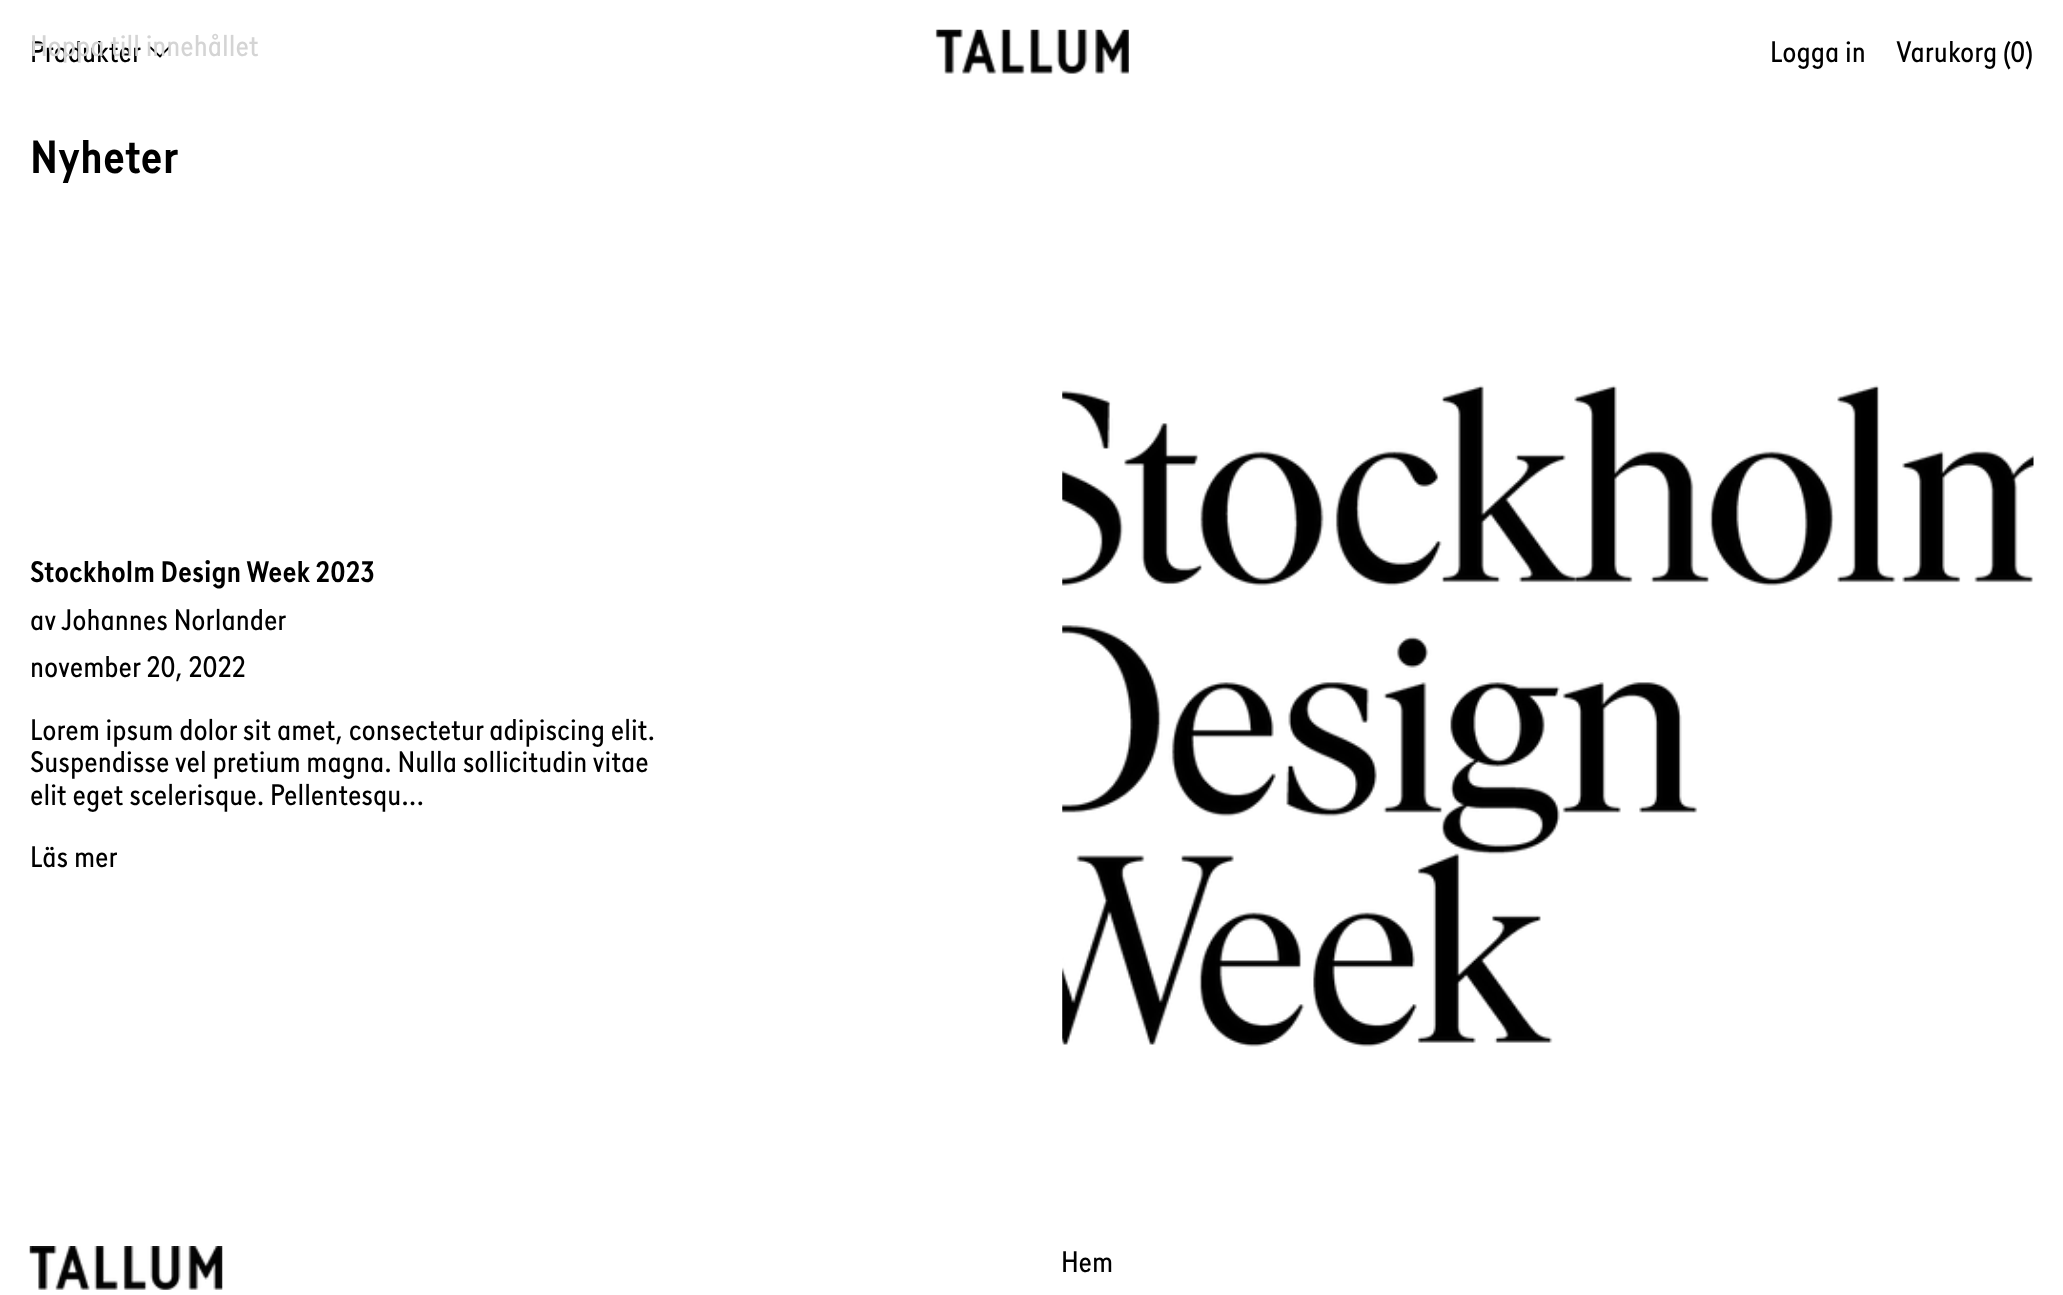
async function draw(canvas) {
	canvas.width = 2063;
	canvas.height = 1295;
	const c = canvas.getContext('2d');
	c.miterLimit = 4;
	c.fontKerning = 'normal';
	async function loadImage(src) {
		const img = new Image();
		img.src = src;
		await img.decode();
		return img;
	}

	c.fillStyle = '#fff';
	c.fillRect(0, 0, 2063, 1295);
	c.font = '29.75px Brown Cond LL';
	c.fillStyle = '#000';
	c.fillText('Produkter', 30, 62);
	c.beginPath();
	c.moveTo(150, 47);
	c.lineTo(160, 56.5);
	c.lineTo(169.5, 47);
	c.strokeStyle = '#000';
	c.lineWidth = 1.8;
	c.stroke();
	c.fillStyle = '#d4d4d4';
	c.fillText('Hoppa till innehållet', 30, 56);
	c.drawImage(await loadImage('img1.png'), 935, 29, 194, 45);
	c.fillStyle = '#000';
	for (const [text, x, y] of [
		['Logga in', 1770, 62],
		['Varukorg (', 1896, 62],
		['0', 2010, 62],
		[')', 2025, 62],
	]) {
		c.fillText(text, x, y);
	}
	c.font = 'bold 46.5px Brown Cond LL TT';
	c.fillText('Nyheter', 30, 173);
	c.font = 'bold 29.75px Brown Cond LL TT';
	c.fillText('Stockholm Design Week 2023', 30, 582);
	c.font = '29.75px Brown Cond LL';
	for (const [text, x, y] of [
		['av Johannes Norlander', 30, 630],
		['november 20, 2022', 30, 677],
		['Lorem ipsum dolor sit amet, consectetur adipiscing elit.', 30, 740],
		['Suspendisse vel pretium magna. Nulla sollicitudin vitae', 30, 772],
		['elit eget scelerisque. Pellentesqu...', 30, 805],
		['Läs mer', 30, 867],
	]) {
		c.fillText(text, x, y);
	}
	c.drawImage(await loadImage('img2.png'), 1062, 385, 972, 662);
	c.drawImage(await loadImage('img3.png'), 29, 1246, 194, 44);
	c.fillText('Hem', 1061, 1272);
}

draw(document.querySelector('canvas'));
